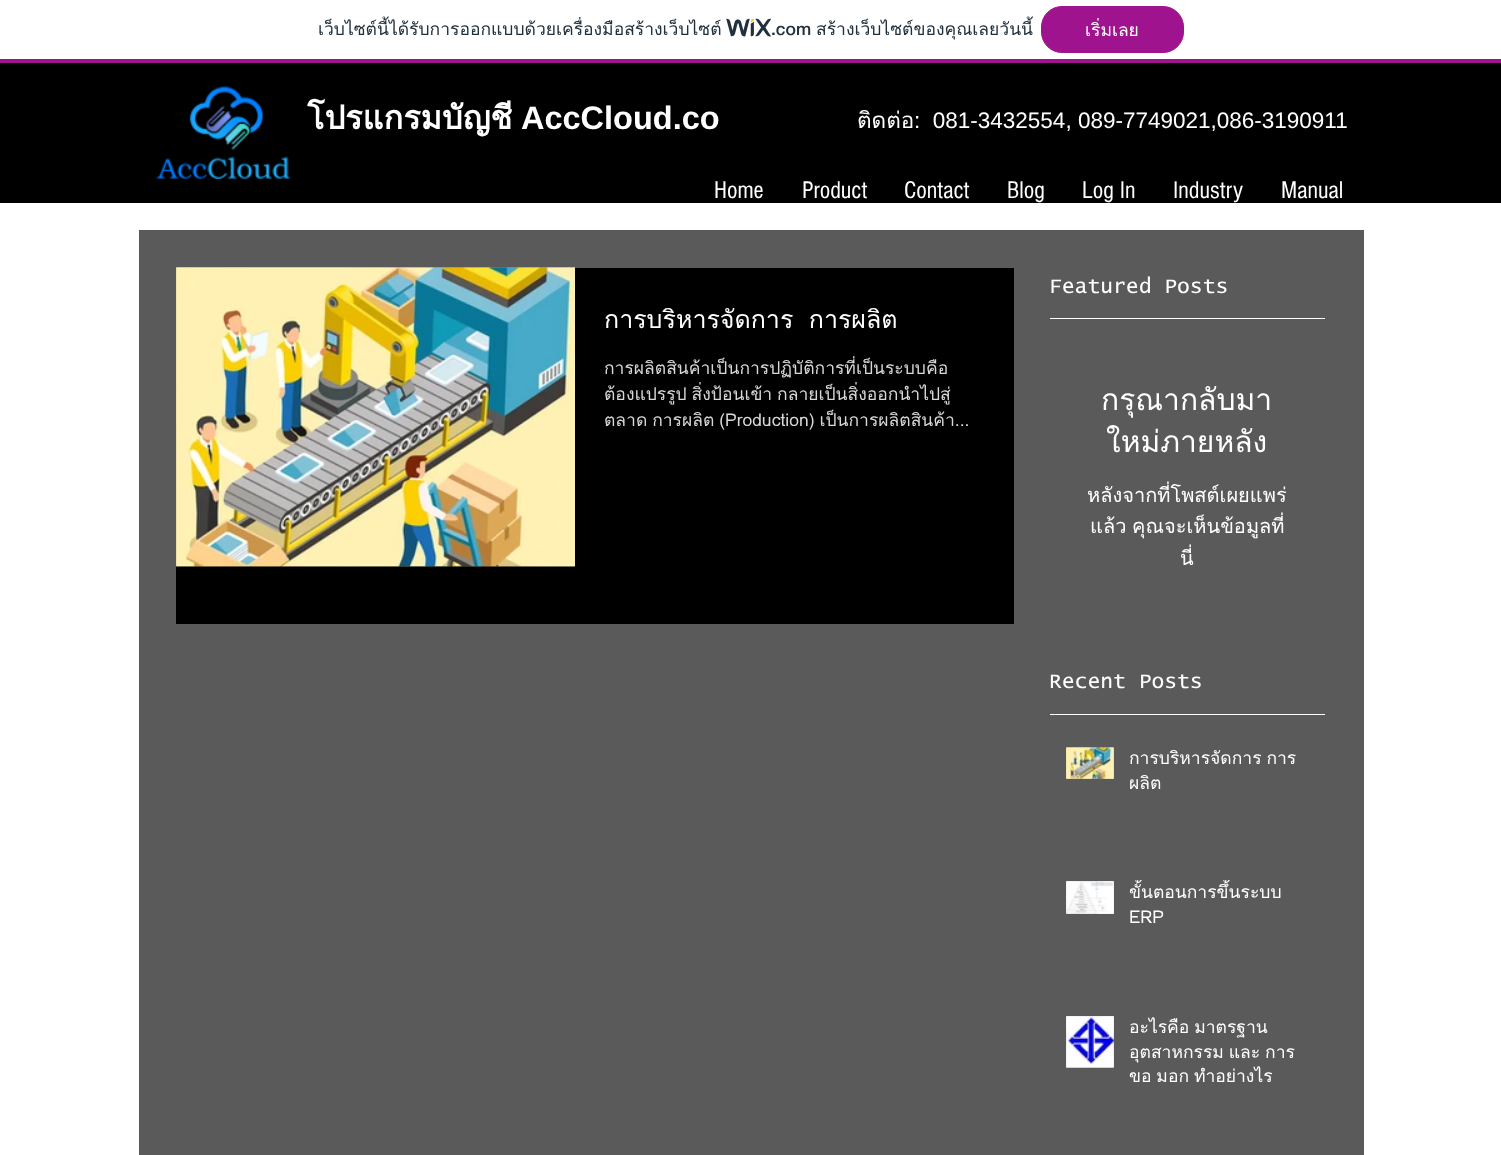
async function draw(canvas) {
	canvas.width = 1501;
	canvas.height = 1155;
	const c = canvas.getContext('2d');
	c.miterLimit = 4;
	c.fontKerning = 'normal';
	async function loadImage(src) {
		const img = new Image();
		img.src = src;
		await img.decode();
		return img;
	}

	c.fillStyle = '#fff';
	c.fillRect(0, 0, 1501, 1155);
	c.fillStyle = '#a0138e';
	c.fillRect(0, 59, 1501, 4);
	c.font = '17.5px Loma';
	c.fillStyle = '#20303c';
	c.fillText('เว็บไซต์นี้ได้รับการออกแบบด้วยเครื่องมือสร้างเว็บไซต์', 318, 35);
	c.drawImage(await loadImage('img1.png'), 726, 18, 45, 19);
	c.font = '500 17.5px "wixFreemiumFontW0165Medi"';
	c.fillText('.com', 771, 35);
	c.font = '17.5px Loma';
	c.fillText('สร้างเว็บไซต์ของคุณเลยวันนี้', 816, 35);
	c.fillStyle = '#a0138e';
	c.beginPath();
	c.roundRect(1041.5, 6.5, 142, 46, 20.5);
	c.fill();
	c.strokeStyle = '#a0138e';
	c.stroke();
	c.fillStyle = '#fff';
	c.fillText('เริ่มเลย', 1085, 36);
	c.fillStyle = '#000';
	c.fillRect(0, 63, 1501, 140);
	c.drawImage(await loadImage('img2.png'), 156, 86, 135, 93);
	c.font = 'bold 32.5px Loma';
	c.fillStyle = '#fff';
	c.fillText('โปรแกรมบัญชี', 307, 129);
	c.font = 'bold 32.5px Liberation Sans';
	c.fillText('AccCloud.co', 521, 129);
	c.font = '22.5px Loma';
	c.fillText('ติดต่อ', 857, 128);
	c.font = '22.5px Liberation Sans';
	c.fillText(':  081-3432554, 089-7749021,086-3190911', 914, 128);
	c.font = '25px "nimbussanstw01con"';
	for (const [text, x, y] of [
		['Home', 714, 198],
		['Product', 802, 198],
		['Contact', 904, 198],
		['Blog', 1007, 198],
		['Log In', 1082, 198],
		['Industry', 1173, 198],
		['Manual', 1281, 198],
	]) {
		c.fillText(text, x, y);
	}
	c.fillStyle = '#5a5a5a';
	c.fillRect(139, 230, 1225, 925);
	c.font = '21.25px "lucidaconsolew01"';
	c.fillStyle = '#fff';
	c.fillText('Featured Posts', 1049, 293);
	c.fillStyle = '#000';
	c.fillRect(176, 268, 838, 356);
	c.drawImage(await loadImage('img3.png'), 176, 267, 399, 300);
	c.drawImage(await loadImage('img4.png'), 176, 267, 399, 300);
	c.wordSpacing = '7px';
	c.font = '25px Loma';
	c.fillStyle = '#fff';
	c.fillText('การบริหารจัดการ การผลิต', 604, 328);
	c.wordSpacing = '0px';
	c.font = '17.5px Loma';
	c.fillStyle = '#d8d8d8';
	c.fillText('การผลิตสินค้าเป็นการปฏิบัติการที่เป็นระบบคือ', 604, 374);
	c.save();
	c.beginPath();
	c.rect(605, 354, 379, 79);
	c.clip();
	c.wordSpacing = '-1px';
	c.fillText('ต้องแปรรูป สิ่งป้อนเข้า กลายเป็นสิ่งออกนำไปสู่', 604, 400);
	c.restore();
	c.wordSpacing = '-1px';
	c.fillText('ตลาด การผลิต (Production) เป็นการผลิตสินค้า...', 604, 426);
	c.fillStyle = '#fff';
	c.fillRect(1050, 318, 275, 1);
	c.wordSpacing = '0px';
	c.font = '30px Loma';
	c.fillText('กรุณากลับมา', 1101, 410);
	c.fillText('ใหม่ภายหลัง', 1106, 452);
	c.font = '20px Loma';
	c.fillText('หลังจากที่โพสต์เผยแพร่', 1087, 502);
	c.wordSpacing = '-1px';
	c.fillText('แล้ว คุณจะเห็นข้อมูลที่', 1090, 533);
	c.wordSpacing = '0px';
	c.fillText('นี่', 1180, 565);
	c.font = '21.25px "lucidaconsolew01"';
	c.fillText('Recent Posts', 1049, 688);
	c.fillRect(1050, 714, 275, 1);
	c.drawImage(await loadImage('img5.png'), 1066, 747, 48, 32);
	c.drawImage(await loadImage('img6.png'), 1066, 747, 48, 32);
	c.wordSpacing = '-1px';
	c.font = '17.5px Loma';
	c.fillText('การบริหารจัดการ การ', 1129, 764);
	c.wordSpacing = '0px';
	c.fillText('ผลิต', 1129, 789);
	c.drawImage(await loadImage('img7.png'), 1066, 881, 48, 33);
	c.drawImage(await loadImage('img8.png'), 1066, 881, 48, 33);
	c.save();
	c.beginPath();
	c.rect(1130, 880, 180, 49);
	c.clip();
	c.fillText('ขั้นตอนการขึ้นระบบ', 1129, 898);
	c.restore();
	c.fillText('ERP', 1129, 923);
	c.drawImage(await loadImage('img9.png'), 1066, 1016, 48, 52);
	c.drawImage(await loadImage('img10.png'), 1066, 1016, 48, 52);
	c.wordSpacing = '-1px';
	c.fillText('อะไรคือ มาตรฐาน', 1129, 1033);
	c.save();
	c.beginPath();
	c.rect(1130, 1015, 180, 73);
	c.clip();
	c.fillText('อุตสาหกรรม และ การ', 1129, 1058);
	c.restore();
	c.fillText('ขอ มอก ทำอย่างไร', 1129, 1082);
}

draw(document.querySelector('canvas'));
